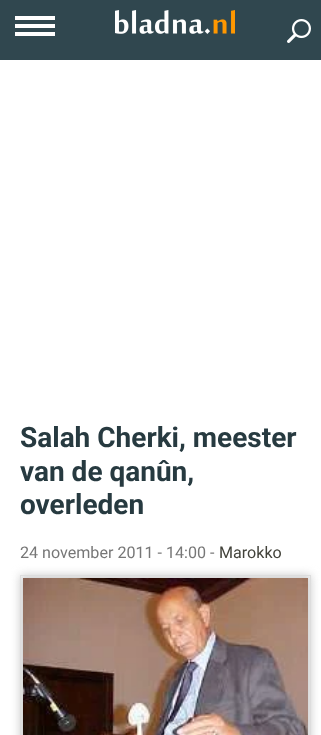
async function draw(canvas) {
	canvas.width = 321;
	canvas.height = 735;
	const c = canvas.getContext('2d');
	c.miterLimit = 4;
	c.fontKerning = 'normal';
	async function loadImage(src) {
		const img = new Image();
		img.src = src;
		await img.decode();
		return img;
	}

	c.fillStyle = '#30474f';
	c.fillRect(0, 0, 321, 735);
	for (const [x, y, w, h, color] of [
		[15, 16, 40, 4, '#fff'],
		[15, 24, 40, 4, '#fff'],
		[15, 32, 40, 4, '#fff'],
	]) {
		c.fillStyle = color;
		c.fillRect(x, y, w, h);
	}
	c.drawImage(await loadImage('img1.png'), 115, 10, 120, 24);
	c.drawImage(await loadImage('img2.png'), 287, 19, 24, 24);
	c.fillRect(0, 60, 321, 675);
	c.font = 'bold 28px Roboto';
	c.fillStyle = '#273a40';
	for (const [text, x, y] of [
		['Salah Cherki, meester', 20, 447],
		['van de qanûn,', 20, 481],
		['overleden', 20, 514],
	]) {
		c.fillText(text, x, y);
	}
	c.font = '16.1px Roboto';
	c.fillStyle = '#777';
	c.fillText('24 november 2011 - 14:00 -', 20, 558);
	c.fillStyle = '#42423a';
	c.fillText('Marokko', 219, 558);
	c.fillStyle = '#ccc';
	c.filter = 'blur(5px)';
	c.beginPath();
	c.rect(20, 575, 291, 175);
	c.fill();
	c.filter = 'none';
	c.strokeStyle = '#ddd';
	c.strokeRect(20.5, 575.5, 290, 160);
	c.drawImage(await loadImage('img3.png'), 23, 578, 285, 157);
}

draw(document.querySelector('canvas'));
